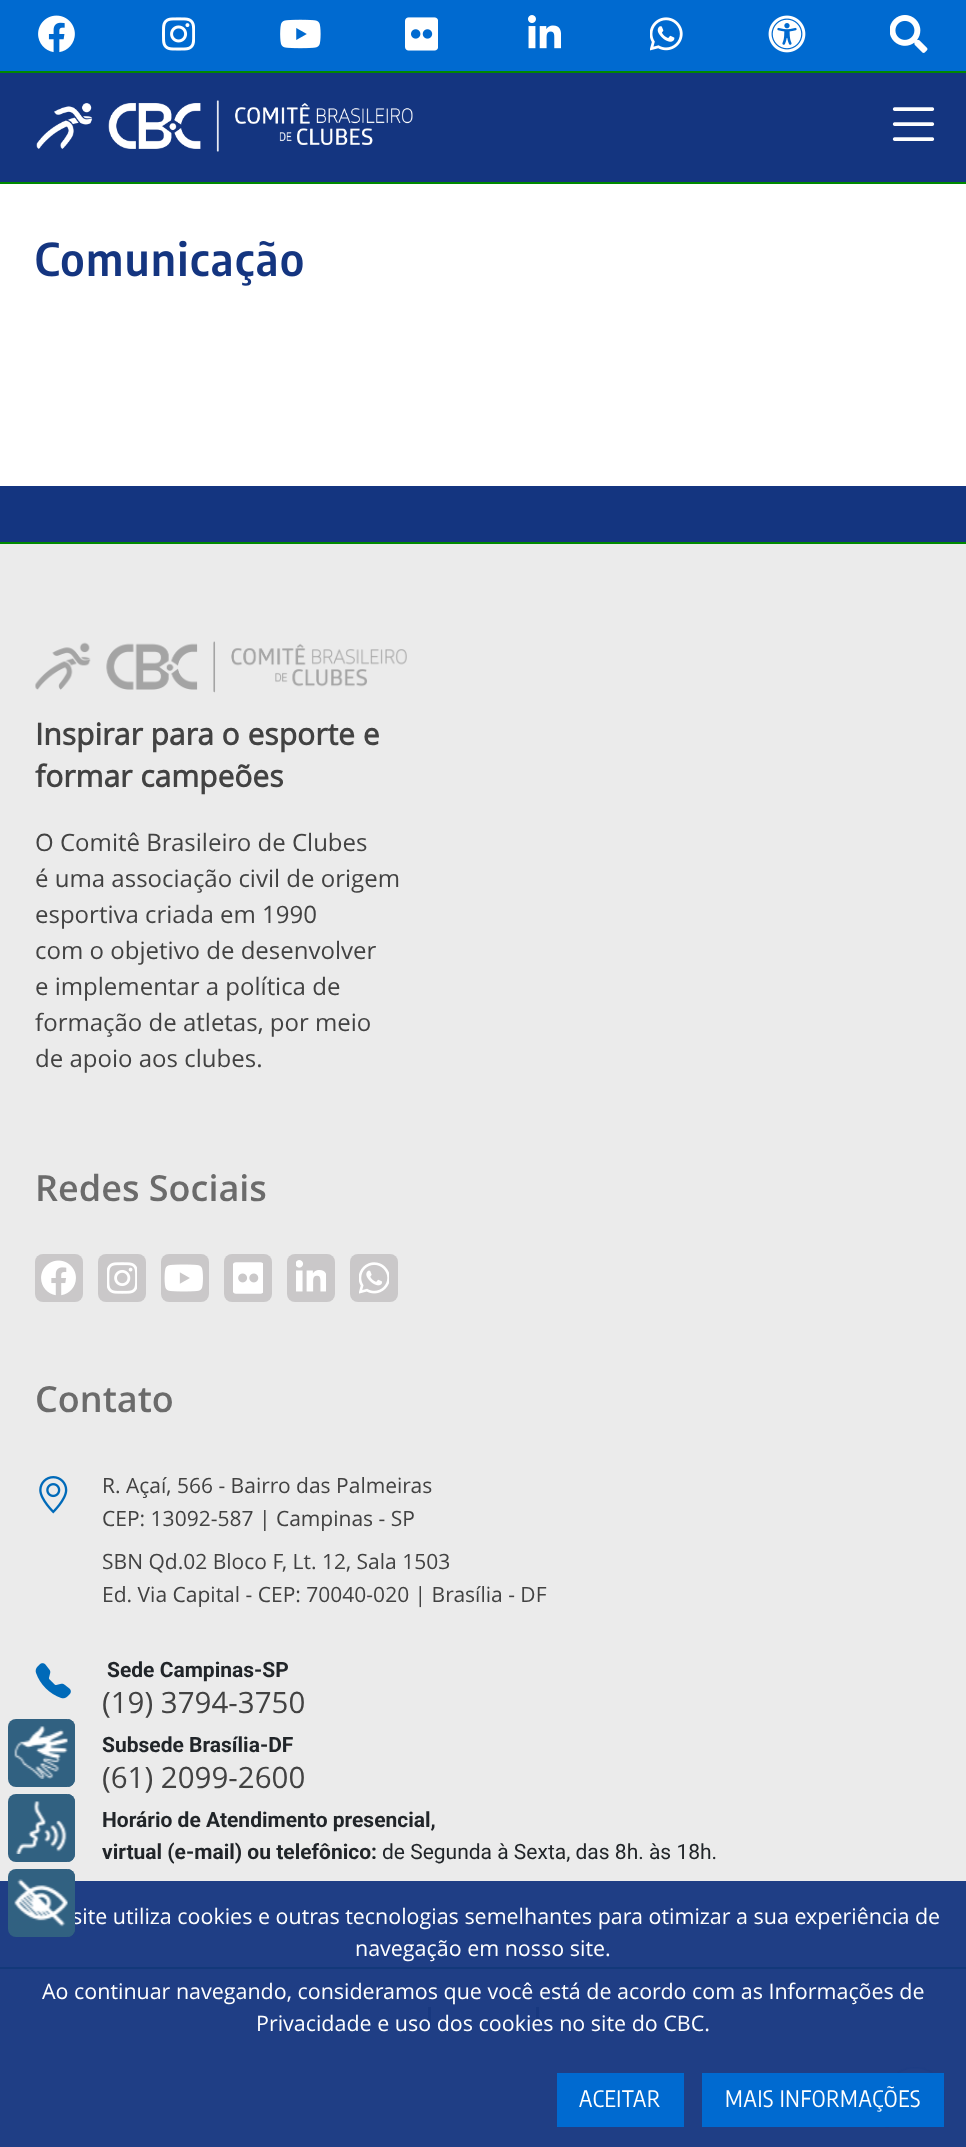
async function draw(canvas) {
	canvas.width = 966;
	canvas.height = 2147;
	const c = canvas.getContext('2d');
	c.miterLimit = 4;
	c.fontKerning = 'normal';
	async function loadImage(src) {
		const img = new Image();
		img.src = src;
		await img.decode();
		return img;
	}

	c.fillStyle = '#fff';
	c.fillRect(0, 0, 966, 2147);
	for (const [x, y, w, h, color] of [
		[0, 73, 966, 109, '#143580'],
		[0, 182, 966, 2, '#008900'],
		[0, 0, 966, 71, '#006ad0'],
		[0, 71, 966, 2, '#008900'],
	]) {
		c.fillStyle = color;
		c.fillRect(x, y, w, h);
	}
	c.drawImage(await loadImage('img1.png'), 38, 15, 37, 38);
	c.drawImage(await loadImage('img2.png'), 162, 17, 33, 34);
	c.drawImage(await loadImage('img3.png'), 280, 19, 41, 30);
	c.drawImage(await loadImage('img4.png'), 405, 17, 33, 34);
	c.drawImage(await loadImage('img5.png'), 528, 15, 33, 34);
	c.drawImage(await loadImage('img6.png'), 650, 17, 33, 34);
	c.drawImage(await loadImage('img7.png'), 768, 15, 38, 38);
	c.drawImage(await loadImage('img8.png'), 890, 15, 38, 38);
	c.drawImage(await loadImage('img9.png'), 36, 100, 377, 52);
	c.drawImage(await loadImage('img10.png'), 892, 107, 43, 34);
	c.drawImage(await loadImage('img11.png'), 36, 240, 267, 46);
	for (const [x, y, w, h, color] of [
		[0, 544, 966, 1337, '#ebebeb'],
		[0, 1881, 966, 266, '#1f3e85'],
		[0, 486, 966, 56, '#143580'],
		[0, 542, 966, 2, '#008900'],
	]) {
		c.fillStyle = color;
		c.fillRect(x, y, w, h);
	}
	c.drawImage(await loadImage('img12.png'), 35, 641, 372, 52);
	c.font = 'bold 30px Open Sans';
	c.fillStyle = '#424242';
	c.fillText('Inspirar para o esporte e', 35, 745);
	c.fillText('formar campeões', 35, 787);
	c.font = '24px Open Sans';
	for (const [text, x, y] of [
		['O Comitê Brasileiro de Clubes', 35, 851],
		['é uma associação civil de origem', 35, 887],
		['esportiva criada em 1990', 35, 923],
		['com o objetivo de desenvolver', 35, 959],
		['e implementar a política de', 35, 995],
		['formação de atletas, por meio', 35, 1031],
		['de apoio aos clubes.', 35, 1067],
	]) {
		c.fillText(text, x, y);
	}
	c.font = '600 36px Open Sans';
	c.fillStyle = '#6b6b6b';
	c.fillText('Redes Sociais', 35, 1201);
	c.fillStyle = '#cac8c9';
	c.beginPath();
	c.roundRect(35, 1254, 48, 48, 8);
	c.fill();
	c.drawImage(await loadImage('img13.png'), 41, 1260, 35, 36);
	c.beginPath();
	c.roundRect(98, 1254, 48, 48, 8);
	c.fill();
	c.drawImage(await loadImage('img14.png'), 107, 1262, 30, 32);
	c.beginPath();
	c.roundRect(161, 1254, 48, 48, 8);
	c.fill();
	c.drawImage(await loadImage('img15.png'), 164, 1264, 39, 28);
	c.beginPath();
	c.roundRect(224, 1254, 48, 48, 8);
	c.fill();
	c.drawImage(await loadImage('img16.png'), 233, 1262, 30, 32);
	c.beginPath();
	c.roundRect(287, 1254, 48, 48, 8);
	c.fill();
	c.drawImage(await loadImage('img17.png'), 296, 1260, 30, 32);
	c.beginPath();
	c.roundRect(350, 1254, 48, 48, 8);
	c.fill();
	c.drawImage(await loadImage('img18.png'), 359, 1262, 30, 32);
	c.fillStyle = '#6b6b6b';
	c.fillText('Contato', 35, 1412);
	c.drawImage(await loadImage('img19.png'), 39, 1476, 29, 38);
	c.font = '21px Open Sans';
	c.fillStyle = '#424242';
	for (const [text, x, y] of [
		['R. Açaí, 566 - Bairro das Palmeiras', 102, 1493],
		['CEP: 13092-587 | Campinas - SP', 102, 1526],
		['SBN Qd.02 Bloco F, Lt. 12, Sala 1503', 102, 1569],
		['Ed. Via Capital - CEP: 70040-020 | Brasília - DF', 102, 1602],
	]) {
		c.fillText(text, x, y);
	}
	c.drawImage(await loadImage('img20.png'), 35, 1663, 36, 36);
	c.font = 'bold 21px Roboto';
	c.fillStyle = '#212529';
	c.fillText('Sede Campinas-SP', 107, 1677);
	c.font = '29.5px Open Sans';
	c.fillStyle = '#424242';
	c.fillText('(19) 3794-3750', 102, 1713);
	c.font = 'bold 21px Roboto';
	c.fillStyle = '#212529';
	c.fillText('Subsede Brasília-DF', 102, 1752);
	c.font = '29.5px Open Sans';
	c.fillStyle = '#424242';
	c.fillText('(61) 2099-2600', 102, 1788);
	c.font = 'bold 21px Roboto';
	c.fillStyle = '#212529';
	c.fillText('Horário de Atendimento presencial,', 102, 1827);
	c.fillText('virtual (e-mail) ou telefônico:', 102, 1859);
	c.font = '21px Roboto';
	c.fillText('de Segunda à Sexta, das 8h. às 18h.', 382, 1859);
	c.fillStyle = '#18387f';
	c.fillRect(428, 2007, 3, 18);
	c.fillRect(536, 2007, 3, 18);
	c.drawImage(await loadImage('img21.png'), 885, 2067, 60, 61);
	c.fillStyle = '#13397a';
	c.fillRect(0, 1967, 966, 2);
	c.fillStyle = '#316181';
	c.beginPath();
	c.roundRect(8, 1719, 67, 68, 8);
	c.fill();
	c.drawImage(await loadImage('img22.png'), 14, 1726, 54, 53);
	c.save();
	c.beginPath();
	c.roundRect(8, 1719, 67, 68, 8);
	c.clip();
	c.fillRect(68, 1719, 7, 68);
	c.restore();
	c.beginPath();
	c.roundRect(8, 1794, 67, 68, 8);
	c.fill();
	c.drawImage(await loadImage('img23.png'), 15, 1801, 52, 53);
	c.save();
	c.beginPath();
	c.roundRect(8, 1794, 67, 68, 8);
	c.clip();
	c.fillRect(68, 1794, 7, 68);
	c.restore();
	c.font = '21.45px Open Sans';
	c.fillStyle = '#fff';
	c.fillText('site utiliza cookies e outras tecnologias semelhantes para otimizar a sua experiência de', 72, 1924);
	c.fillStyle = '#316181';
	c.beginPath();
	c.roundRect(8, 1869, 67, 68, 8);
	c.fill();
	c.drawImage(await loadImage('img24.png'), 14, 1879, 54, 48);
	c.save();
	c.beginPath();
	c.roundRect(8, 1869, 67, 68, 8);
	c.clip();
	c.fillRect(68, 1869, 7, 68);
	c.restore();
	c.fillStyle = '#fff';
	for (const [text, x, y] of [
		['navegação em nosso site.', 355, 1956],
		['Ao continuar navegando, consideramos que você está de acordo com as Informações de', 42, 1999],
		['Privacidade e uso dos cookies no site do CBC.', 256, 2031],
	]) {
		c.fillText(text, x, y);
	}
	c.fillStyle = '#006ad0';
	c.fillRect(557, 2073, 127, 54);
	c.letterSpacing = '0.75px';
	c.font = '22.5px Encode Sans Condensed';
	c.fillStyle = '#fff';
	c.fillText('ACEITAR', 579, 2107);
	c.fillStyle = '#006ad0';
	c.fillRect(702, 2073, 242, 54);
	c.fillStyle = '#fff';
	c.fillText('MAIS INFORMAÇÕES', 725, 2107);
}

draw(document.querySelector('canvas'));
